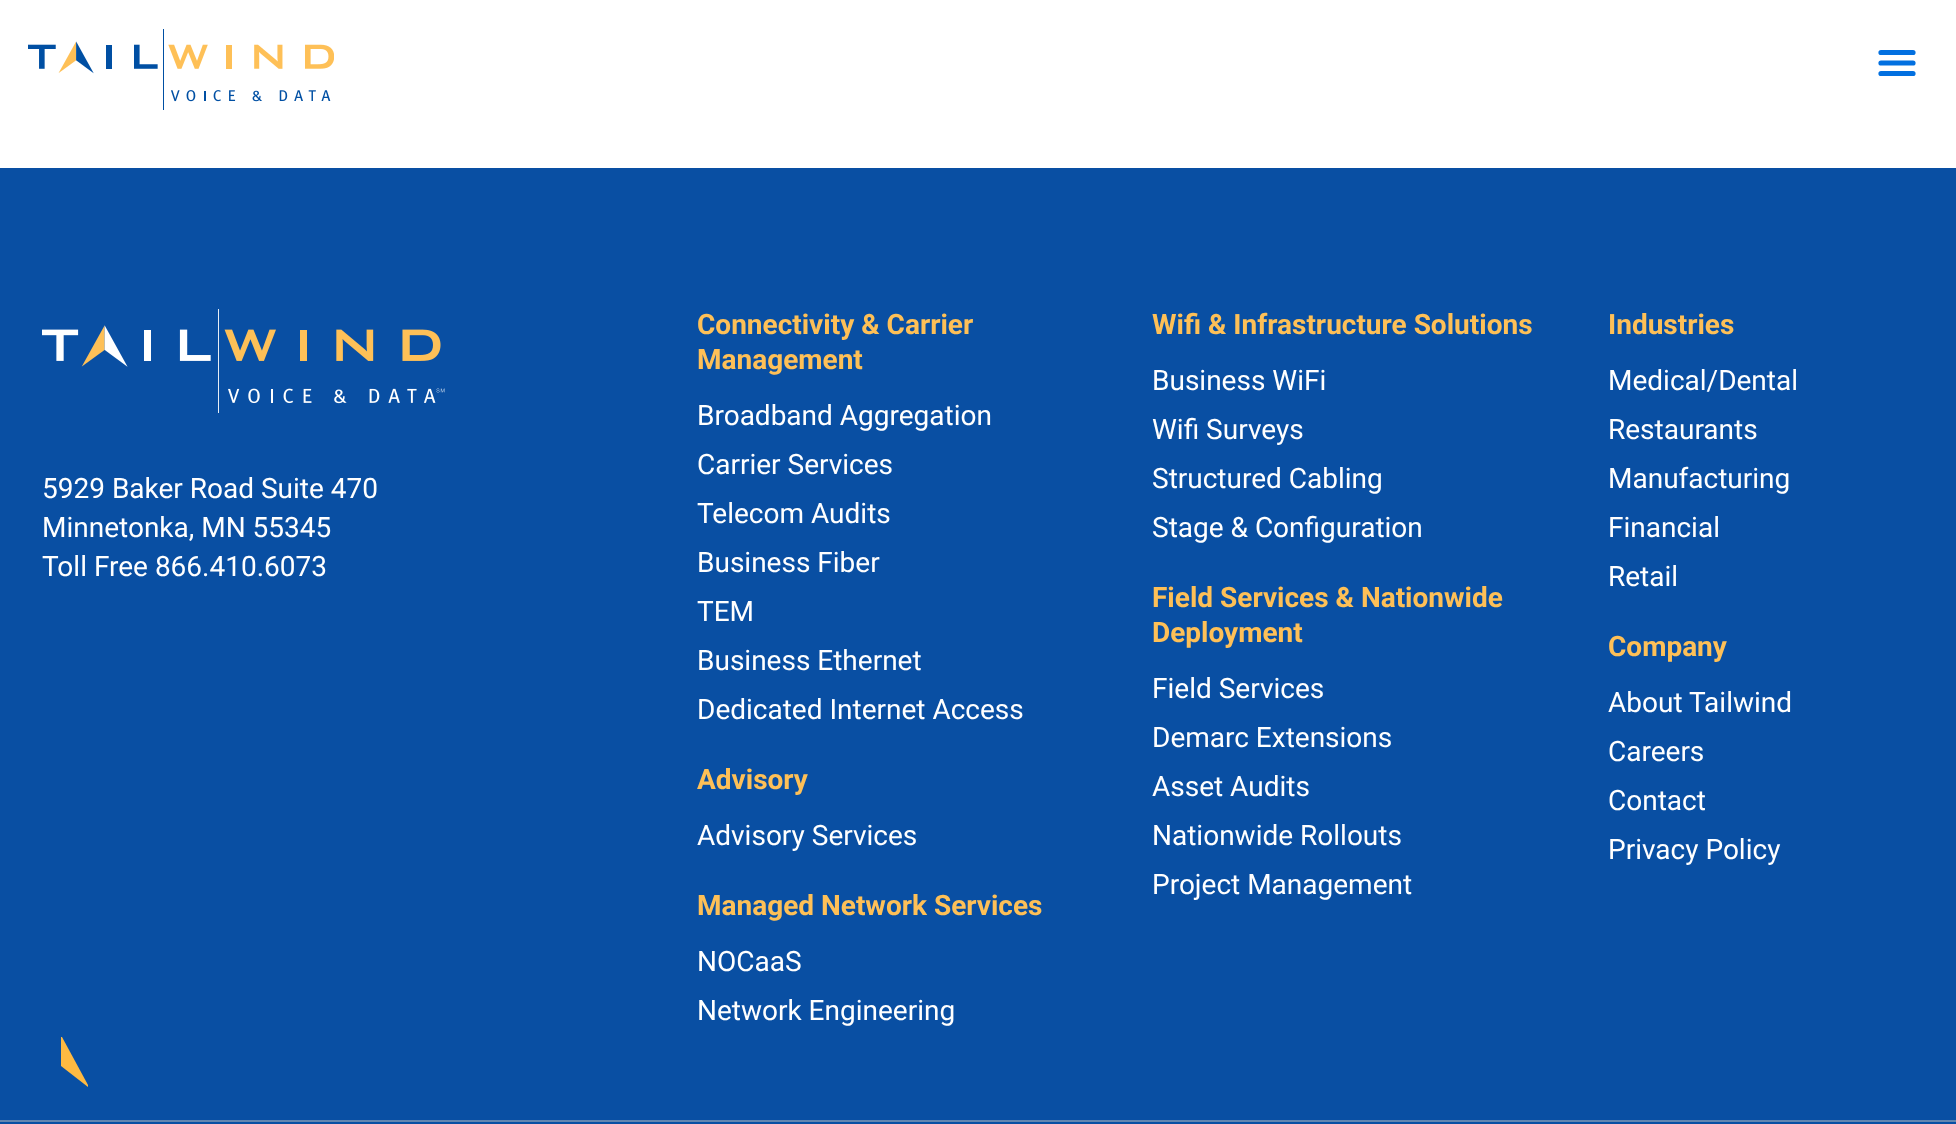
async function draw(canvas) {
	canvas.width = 1956;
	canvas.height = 1124;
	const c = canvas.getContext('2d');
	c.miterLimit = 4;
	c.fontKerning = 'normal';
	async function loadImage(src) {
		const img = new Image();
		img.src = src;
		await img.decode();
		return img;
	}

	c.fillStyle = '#fff';
	c.fillRect(0, 0, 1956, 1124);
	c.drawImage(await loadImage('img1.png'), 28, 29, 306, 81);
	c.beginPath();
	c.moveTo(1881, 63);
	c.lineTo(1913, 63);
	c.moveTo(1881, 52.5);
	c.lineTo(1913, 52.5);
	c.moveTo(1881, 73.5);
	c.lineTo(1913, 73.5);
	c.strokeStyle = '#0270e0';
	c.lineWidth = 5.2;
	c.lineCap = 'round';
	c.lineJoin = 'round';
	c.stroke();
	c.fillStyle = '#094fa3';
	c.fillRect(0, 168, 1956, 956);
	c.fillStyle = '#6386b0';
	c.fillRect(0, 1120, 1956, 2);
	c.drawImage(await loadImage('img2.png'), 42, 309, 403, 104);
	c.font = '28px Roboto';
	c.fillStyle = '#fff';
	for (const [text, x, y] of [
		['5929 Baker Road Suite 470', 42, 498],
		['Minnetonka, MN 55345', 42, 537],
		['Toll Free 866.410.6073', 42, 576],
	]) {
		c.fillText(text, x, y);
	}
	c.font = 'bold 28px Roboto';
	c.fillStyle = '#fec057';
	c.fillText('Connectivity & Carrier', 697, 334);
	c.fillText('Management', 697, 369);
	c.font = '28px Roboto';
	c.fillStyle = '#fff';
	for (const [text, x, y] of [
		['Broadband Aggregation', 697, 425],
		['Carrier Services', 697, 474],
		['Telecom Audits', 697, 523],
		['Business Fiber', 697, 572],
		['TEM', 697, 621],
		['Business Ethernet', 697, 670],
		['Dedicated Internet Access', 697, 719],
	]) {
		c.fillText(text, x, y);
	}
	c.font = 'bold 28px Roboto';
	c.fillStyle = '#fec057';
	c.fillText('Advisory', 697, 789);
	c.font = '28px Roboto';
	c.fillStyle = '#fff';
	c.fillText('Advisory Services', 697, 845);
	c.font = 'bold 28px Roboto';
	c.fillStyle = '#fec057';
	c.fillText('Managed Network Services', 697, 915);
	c.font = '28px Roboto';
	c.fillStyle = '#fff';
	c.fillText('NOCaaS', 697, 971);
	c.fillText('Network Engineering', 697, 1020);
	c.font = 'bold 28px Roboto';
	c.fillStyle = '#fec057';
	c.fillText('Wifi & Infrastructure Solutions', 1152, 334);
	c.font = '28px Roboto';
	c.fillStyle = '#fff';
	for (const [text, x, y] of [
		['Business WiFi', 1152, 390],
		['Wifi Surveys', 1152, 439],
		['Structured Cabling', 1152, 488],
		['Stage & Configuration', 1152, 537],
	]) {
		c.fillText(text, x, y);
	}
	c.font = 'bold 28px Roboto';
	c.fillStyle = '#fec057';
	c.fillText('Field Services & Nationwide', 1152, 607);
	c.fillText('Deployment', 1152, 642);
	c.font = '28px Roboto';
	c.fillStyle = '#fff';
	for (const [text, x, y] of [
		['Field Services', 1152, 698],
		['Demarc Extensions', 1152, 747],
		['Asset Audits', 1152, 796],
		['Nationwide Rollouts', 1152, 845],
		['Project Management', 1152, 894],
	]) {
		c.fillText(text, x, y);
	}
	c.font = 'bold 28px Roboto';
	c.fillStyle = '#fec057';
	c.fillText('Industries', 1608, 334);
	c.font = '28px Roboto';
	c.fillStyle = '#fff';
	for (const [text, x, y] of [
		['Medical/Dental', 1608, 390],
		['Restaurants', 1608, 439],
		['Manufacturing', 1608, 488],
		['Financial', 1608, 537],
		['Retail', 1608, 586],
	]) {
		c.fillText(text, x, y);
	}
	c.font = 'bold 28px Roboto';
	c.fillStyle = '#fec057';
	c.fillText('Company', 1608, 656);
	c.font = '28px Roboto';
	c.fillStyle = '#fff';
	for (const [text, x, y] of [
		['About Tailwind', 1608, 712],
		['Careers', 1608, 761],
		['Contact', 1608, 810],
		['Privacy Policy', 1608, 859],
	]) {
		c.fillText(text, x, y);
	}
	c.fillStyle = '#ffba42';
	c.beginPath();
	c.moveTo(62, 1037);
	c.lineTo(88, 1085);
	c.lineTo(88, 1087);
	c.lineTo(61, 1066);
	c.lineTo(61, 1037);
	c.closePath();
	c.fill();
}

draw(document.querySelector('canvas'));
